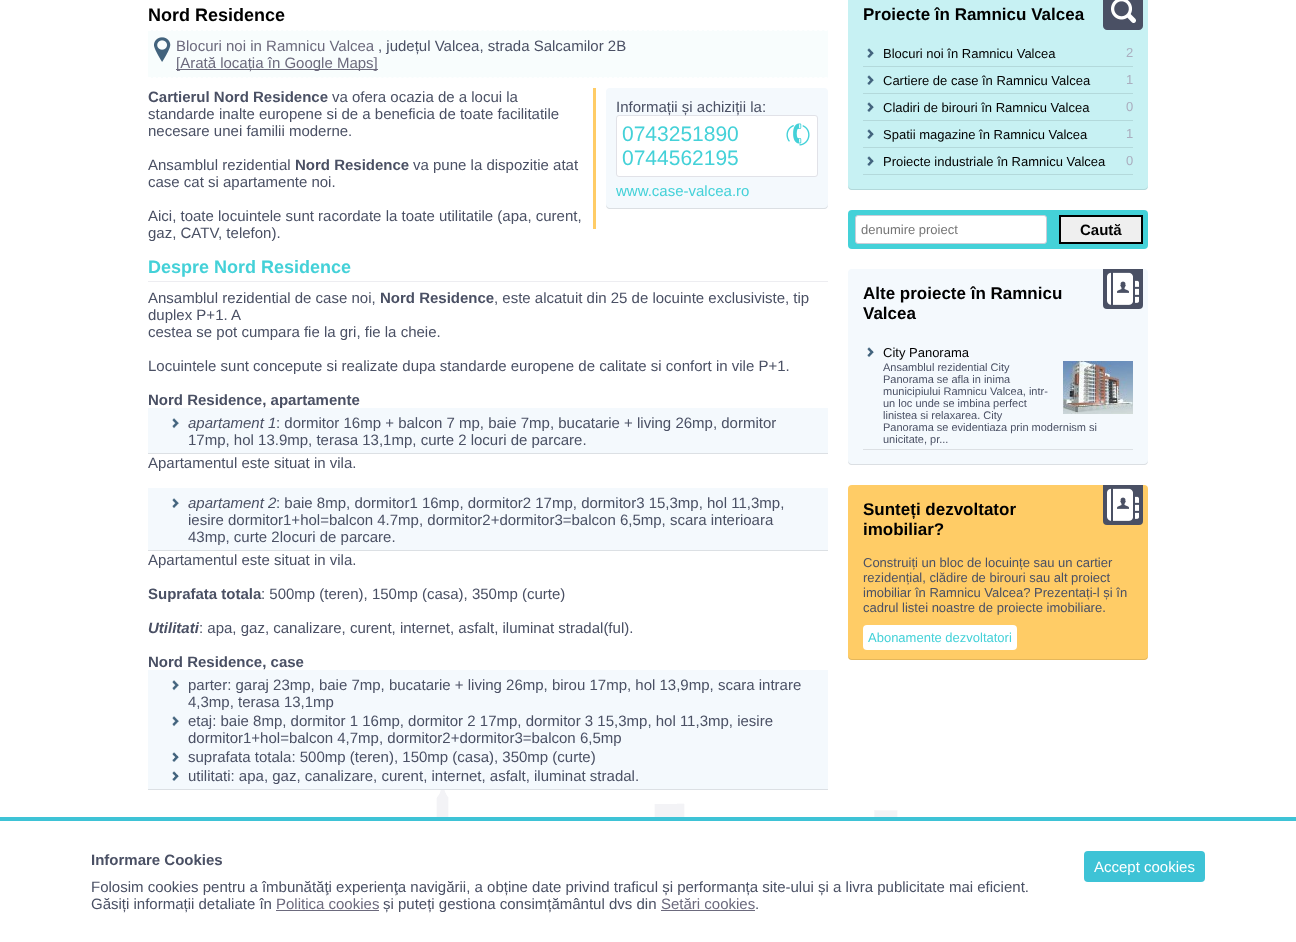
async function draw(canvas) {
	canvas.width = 1296;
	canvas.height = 942;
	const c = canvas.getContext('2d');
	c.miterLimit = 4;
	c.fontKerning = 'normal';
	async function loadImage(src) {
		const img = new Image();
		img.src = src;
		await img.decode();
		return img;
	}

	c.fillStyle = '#fff';
	c.fillRect(0, 0, 1296, 942);
	c.drawImage(await loadImage('img1.png'), 436, 790, 462, 27);
	c.font = 'bold 18px Liberation Sans';
	c.fillStyle = '#000';
	c.fillText('Nord Residence', 148, 21);
	c.fillStyle = '#f8fdfd';
	c.fillRect(148, 30, 680, 48);
	c.beginPath();
	c.moveTo(148, 30.5);
	c.lineTo(828, 30.5);
	c.strokeStyle = '#fff';
	c.setLineDash([3, 2.01]);
	c.stroke();
	c.beginPath();
	c.moveTo(148, 77.5);
	c.lineTo(828, 77.5);
	c.stroke();
	c.drawImage(await loadImage('img2.png'), 154, 37, 17, 25);
	c.font = '15px Liberation Sans';
	c.fillStyle = '#6c6a7d';
	c.fillText('Blocuri noi in Ramnicu Valcea', 176, 51);
	c.fillStyle = '#4a5064';
	c.fillText(', județul Valcea, strada Salcamilor 2B', 378, 51);
	c.fillStyle = '#6c6a7d';
	c.fillRect(176, 69, 202, 1);
	c.fillText('[Arată locația în Google Maps]', 176, 68);
	c.font = 'bold 15px Liberation Sans';
	c.fillStyle = '#4a5064';
	c.fillText('Cartierul Nord Residence', 148, 102);
	c.font = '15px Liberation Sans';
	for (const [text, x, y] of [
		['va ofera ocazia de a locui la', 332, 102],
		['standarde inalte europene si de a beneficia de toate facilitatile', 148, 119],
		['necesare unei familii moderne.', 148, 136],
		['Ansamblul rezidential', 148, 170],
	]) {
		c.fillText(text, x, y);
	}
	c.font = 'bold 15px Liberation Sans';
	c.fillText('Nord Residence', 295, 170);
	c.font = '15px Liberation Sans';
	for (const [text, x, y] of [
		['va pune la dispozitie atat', 413, 170],
		['case cat si apartamente noi.', 148, 187],
		['Aici, toate locuintele sunt racordate la toate utilitatile (apa, curent,', 148, 221],
		['gaz, CATV, telefon).', 148, 238],
	]) {
		c.fillText(text, x, y);
	}
	c.fillStyle = '#ededf1';
	c.fillRect(148, 281, 680, 1);
	c.font = 'bold 18px Liberation Sans';
	c.fillStyle = '#44d1d8';
	c.fillText('Despre Nord Residence', 148, 273);
	c.font = '15px Liberation Sans';
	c.fillStyle = '#4a5064';
	c.fillText('Ansamblul rezidential de case noi,', 148, 303);
	c.font = 'bold 15px Liberation Sans';
	c.fillText('Nord Residence', 380, 303);
	c.font = '15px Liberation Sans';
	for (const [text, x, y] of [
		[', este alcatuit din 25 de locuinte exclusiviste, tip', 494, 303],
		['duplex P+1. A', 148, 320],
		['cestea se pot cumpara fie la gri, fie la cheie.', 148, 337],
		['Locuintele sunt concepute si realizate dupa standarde europene de calitate si confort in vile P+1.', 148, 371],
	]) {
		c.fillText(text, x, y);
	}
	c.fillStyle = '#f4f9fd';
	c.fillRect(148, 408, 680, 45);
	c.font = 'bold 15px Liberation Sans';
	c.fillStyle = '#4a5064';
	c.fillText('Nord Residence, apartamente', 148, 405);
	c.fillStyle = '#dce0e4';
	c.fillRect(148, 453, 680, 1);
	c.drawImage(await loadImage('img3.png'), 172, 418, 7, 11);
	c.font = 'italic 15px Liberation Sans';
	c.fillStyle = '#4a5064';
	c.fillText('apartament 1', 188, 428);
	c.font = '15px Liberation Sans';
	for (const [text, x, y] of [
		[': dormitor 16mp + balcon 7 mp, baie 7mp, bucatarie + living 26mp, dormitor', 276, 428],
		['17mp, hol 13.9mp, terasa 13,1mp, curte 2 locuri de parcare.', 188, 445],
		['Apartamentul este situat in vila.', 148, 468],
	]) {
		c.fillText(text, x, y);
	}
	c.fillStyle = '#f4f9fd';
	c.fillRect(148, 488, 680, 62);
	c.fillStyle = '#dce0e4';
	c.fillRect(148, 550, 680, 1);
	c.drawImage(await loadImage('img4.png'), 172, 498, 7, 10);
	c.font = 'italic 15px Liberation Sans';
	c.fillStyle = '#4a5064';
	c.fillText('apartament 2', 188, 508);
	c.font = '15px Liberation Sans';
	for (const [text, x, y] of [
		[': baie 8mp, dormitor1 16mp, dormitor2 17mp, dormitor3 15,3mp, hol 11,3mp,', 276, 508],
		['iesire dormitor1+hol=balcon 4.7mp, dormitor2+dormitor3=balcon 6,5mp, scara interioara', 188, 525],
		['43mp, curte 2locuri de parcare.', 188, 542],
		['Apartamentul este situat in vila.', 148, 565],
	]) {
		c.fillText(text, x, y);
	}
	c.font = 'bold 15px Liberation Sans';
	c.fillText('Suprafata totala', 148, 599);
	c.font = '15px Liberation Sans';
	c.fillText(': 500mp (teren), 150mp (casa), 350mp (curte)', 261, 599);
	c.font = 'italic bold 15px Liberation Sans';
	c.fillText('Utilitati', 148, 633);
	c.font = '15px Liberation Sans';
	c.fillText(': apa, gaz, canalizare, curent, internet, asfalt, iluminat stradal(ful).', 199, 633);
	c.font = 'bold 15px Liberation Sans';
	c.fillText('Nord Residence, case', 148, 667);
	c.fillStyle = '#f4f9fd';
	c.fillRect(148, 670, 680, 119);
	c.fillStyle = '#dce0e4';
	c.fillRect(148, 789, 680, 1);
	c.drawImage(await loadImage('img3.png'), 172, 680, 7, 11);
	c.font = '15px Liberation Sans';
	c.fillStyle = '#4a5064';
	c.fillText('parter: garaj 23mp, baie 7mp, bucatarie + living 26mp, birou 17mp, hol 13,9mp, scara intrare', 188, 690);
	c.fillText('4,3mp, terasa 13,1mp', 188, 707);
	c.drawImage(await loadImage('img3.png'), 172, 716, 7, 11);
	c.fillText('etaj: baie 8mp, dormitor 1 16mp, dormitor 2 17mp, dormitor 3 15,3mp, hol 11,3mp, iesire', 188, 726);
	c.fillText('dormitor1+hol=balcon 4,7mp, dormitor2+dormitor3=balcon 6,5mp', 188, 743);
	c.drawImage(await loadImage('img5.png'), 172, 752, 7, 10);
	c.fillText('suprafata totala: 500mp (teren), 150mp (casa), 350mp (curte)', 188, 762);
	c.drawImage(await loadImage('img5.png'), 172, 771, 7, 10);
	c.fillText('utilitati: apa, gaz, canalizare, curent, internet, asfalt, iluminat stradal.', 188, 781);
	c.fillStyle = '#fc6';
	c.fillRect(593, 88, 3, 141);
	c.fillStyle = '#f4f9fd';
	c.beginPath();
	c.roundRect(606, 88, 222, 121, 4);
	c.fill();
	c.fillStyle = '#0000001a';
	c.beginPath();
	c.moveTo(606, 204);
	c.bezierCurveTo(606, 207, 607, 209, 610, 209);
	c.lineTo(824, 209);
	c.bezierCurveTo(827, 209, 828, 207, 828, 204);
	c.bezierCurveTo(828, 206, 826, 208, 824, 208);
	c.lineTo(610, 208);
	c.bezierCurveTo(608, 208, 606, 206, 606, 204);
	c.closePath();
	c.fill();
	c.fillStyle = '#fff';
	c.beginPath();
	c.roundRect(616.5, 115.5, 201, 61, 2.5);
	c.fill();
	c.strokeStyle = '#e1e2e8';
	c.setLineDash([]);
	c.stroke();
	c.fillStyle = '#4a5064';
	c.fillText('Informații și achiziții la:', 616, 112);
	c.font = '21px Liberation Sans';
	c.fillStyle = '#44d1d8';
	c.fillText('0743251890', 622, 141);
	c.drawImage(await loadImage('img6.png'), 786, 123, 24, 23);
	c.fillText('0744562195', 622, 165);
	c.font = '15px Liberation Sans';
	c.fillText('www.case-valcea.ro', 616, 196);
	c.fillStyle = '#c7f1f3';
	c.beginPath();
	c.roundRect(848, -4, 300, 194, 4);
	c.fill();
	c.fillStyle = '#0000001a';
	c.beginPath();
	c.moveTo(848, 185);
	c.bezierCurveTo(848, 188, 849, 190, 852, 190);
	c.lineTo(1144, 190);
	c.bezierCurveTo(1147, 190, 1148, 188, 1148, 185);
	c.bezierCurveTo(1148, 187, 1146, 189, 1144, 189);
	c.lineTo(852, 189);
	c.bezierCurveTo(850, 189, 848, 187, 848, 185);
	c.closePath();
	c.fill();
	c.font = 'bold 17px Liberation Sans';
	c.fillStyle = '#000';
	c.fillText('Proiecte în Ramnicu Valcea', 863, 20);
	c.fillStyle = '#4a5064';
	c.beginPath();
	c.moveTo(1103, -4);
	c.lineTo(1143, -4);
	c.lineTo(1143, 26);
	c.bezierCurveTo(1143, 28, 1141, 30, 1139, 30);
	c.lineTo(1107, 30);
	c.bezierCurveTo(1105, 30, 1103, 28, 1103, 26);
	c.closePath();
	c.fill();
	c.drawImage(await loadImage('img7.png'), 1111, 0, 25, 23);
	c.fillStyle = '#b3d9db';
	c.fillRect(863, 66, 270, 1);
	c.drawImage(await loadImage('img8.png'), 867, 48, 7, 10);
	c.font = '13px Liberation Sans';
	c.fillStyle = '#000';
	c.fillText('Blocuri noi în Ramnicu Valcea', 883, 58);
	c.fillStyle = '#aaaebf';
	c.fillText('2', 1126, 57);
	c.fillStyle = '#b3d9db';
	c.fillRect(863, 93, 270, 1);
	c.drawImage(await loadImage('img8.png'), 867, 75, 7, 10);
	c.fillStyle = '#000';
	c.fillText('Cartiere de case în Ramnicu Valcea', 883, 85);
	c.fillStyle = '#aaaebf';
	c.fillText('1', 1126, 84);
	c.fillStyle = '#b3d9db';
	c.fillRect(863, 120, 270, 1);
	c.drawImage(await loadImage('img8.png'), 867, 102, 7, 10);
	c.fillStyle = '#000';
	c.fillText('Cladiri de birouri în Ramnicu Valcea', 883, 112);
	c.fillStyle = '#aaaebf';
	c.fillText('0', 1126, 111);
	c.fillStyle = '#b3d9db';
	c.fillRect(863, 147, 270, 1);
	c.drawImage(await loadImage('img8.png'), 867, 129, 7, 10);
	c.fillStyle = '#000';
	c.fillText('Spatii magazine în Ramnicu Valcea', 883, 139);
	c.fillStyle = '#aaaebf';
	c.fillText('1', 1126, 138);
	c.fillStyle = '#b3d9db';
	c.fillRect(863, 174, 270, 1);
	c.drawImage(await loadImage('img8.png'), 867, 156, 7, 10);
	c.fillStyle = '#000';
	c.fillText('Proiecte industriale în Ramnicu Valcea', 883, 166);
	c.fillStyle = '#aaaebf';
	c.fillText('0', 1126, 165);
	c.fillStyle = '#44d1d8';
	c.beginPath();
	c.roundRect(848, 210, 300, 39, 4);
	c.fill();
	c.fillStyle = '#fff';
	c.beginPath();
	c.roundRect(855.5, 215.5, 191, 28, 2.5);
	c.fill();
	c.strokeStyle = '#cbcdd8';
	c.stroke();
	c.fillStyle = '#757575';
	c.fillText('denumire proiect', 861, 234);
	c.fillStyle = '#efefef';
	c.beginPath();
	c.rect(1060, 216, 82, 27);
	c.fill();
	c.strokeStyle = '#000';
	c.lineWidth = 2;
	c.stroke();
	c.font = 'bold 15px Liberation Sans';
	c.fillStyle = '#000';
	c.fillText('Caută', 1080, 235);
	c.fillStyle = '#f4f9fd';
	c.beginPath();
	c.roundRect(848, 269, 300, 196, 4);
	c.fill();
	c.fillStyle = '#0000001a';
	c.beginPath();
	c.moveTo(848, 460);
	c.bezierCurveTo(848, 463, 849, 465, 852, 465);
	c.lineTo(1144, 465);
	c.bezierCurveTo(1147, 465, 1148, 463, 1148, 460);
	c.bezierCurveTo(1148, 462, 1146, 464, 1144, 464);
	c.lineTo(852, 464);
	c.bezierCurveTo(850, 464, 848, 462, 848, 460);
	c.closePath();
	c.fill();
	c.font = 'bold 17px Liberation Sans';
	c.fillStyle = '#000';
	c.fillText('Alte proiecte în Ramnicu', 863, 299);
	c.fillText('Valcea', 863, 319);
	c.fillStyle = '#4a5064';
	c.beginPath();
	c.roundRect(1103, 269, 40, 40, [0, 0, 4, 4]);
	c.fill();
	c.drawImage(await loadImage('img9.png'), 1107, 272, 32, 33);
	c.fillStyle = '#dce0e4';
	c.fillRect(863, 449, 270, 1);
	c.drawImage(await loadImage('img10.png'), 867, 347, 7, 10);
	c.font = '13px Liberation Sans';
	c.fillStyle = '#000';
	c.fillText('City Panorama', 883, 357);
	c.font = '11px Liberation Sans';
	c.fillStyle = '#4a5064';
	for (const [text, x, y] of [
		['Ansamblul rezidential City', 883, 371],
		['Panorama se afla in inima', 883, 383],
		['municipiului Ramnicu Valcea, intr-', 883, 395],
		['un loc unde se imbina perfect', 883, 407],
		['linistea si relaxarea. City', 883, 419],
		['Panorama se evidentiaza prin modernism si', 883, 431],
		['unicitate, pr...', 883, 443],
	]) {
		c.fillText(text, x, y);
	}
	c.drawImage(await loadImage('img11.png'), 1063, 361, 70, 53);
	c.fillStyle = '#fc6';
	c.beginPath();
	c.roundRect(848, 485, 300, 175, 4);
	c.fill();
	c.fillStyle = '#0000001a';
	c.beginPath();
	c.moveTo(848, 655);
	c.bezierCurveTo(848, 658, 849, 660, 852, 660);
	c.lineTo(1144, 660);
	c.bezierCurveTo(1147, 660, 1148, 658, 1148, 655);
	c.bezierCurveTo(1148, 657, 1146, 659, 1144, 659);
	c.lineTo(852, 659);
	c.bezierCurveTo(850, 659, 848, 657, 848, 655);
	c.closePath();
	c.fill();
	c.font = 'bold 17px Liberation Sans';
	c.fillStyle = '#000';
	c.fillText('Sunteți dezvoltator', 863, 515);
	c.fillText('imobiliar?', 863, 535);
	c.fillStyle = '#4a5064';
	c.beginPath();
	c.roundRect(1103, 485, 40, 40, [0, 0, 4, 4]);
	c.fill();
	c.drawImage(await loadImage('img9.png'), 1107, 488, 32, 33);
	c.font = '13px Liberation Sans';
	for (const [text, x, y] of [
		['Construiți un bloc de locuințe sau un cartier', 863, 567],
		['rezidențial, clădire de birouri sau alt proiect', 863, 582],
		['imobiliar în Ramnicu Valcea? Prezentați-l și în', 863, 597],
		['cadrul listei noastre de proiecte imobiliare.', 863, 612],
	]) {
		c.fillText(text, x, y);
	}
	c.fillStyle = '#fff';
	c.beginPath();
	c.roundRect(863, 625, 154, 25, 4);
	c.fill();
	c.fillStyle = '#44d1d8';
	c.fillText('Abonamente dezvoltatori', 868, 642);
	c.fillStyle = '#3ec3d6';
	c.fillRect(0, 817, 1296, 4);
	c.font = 'bold 15px Liberation Sans';
	c.fillStyle = '#4a5064';
	c.fillText('Informare Cookies', 91, 865);
	c.fillStyle = '#3ec3d6';
	c.beginPath();
	c.roundRect(1084, 851, 121, 31, 4);
	c.fill();
	c.font = '15px Liberation Sans';
	c.fillStyle = '#fff';
	c.fillText('Accept cookies', 1094, 872);
	c.fillStyle = '#4a5064';
	c.fillText('Folosim cookies pentru a îmbunătăţi experienţa navigării, a obține date privind traficul și performanța site-ului și a livra publicitate mai eficient.', 91, 892);
	c.fillText('Găsiți informații detaliate în', 91, 909);
	c.fillStyle = '#6c6a7d';
	c.fillText('Politica cookies', 276, 909);
	c.fillRect(276, 910, 103, 1);
	c.fillStyle = '#4a5064';
	c.fillText('și puteți gestiona consimțământul dvs din', 383, 909);
	c.fillStyle = '#6c6a7d';
	c.fillText('Setări cookies', 661, 909);
	c.fillRect(661, 910, 94, 1);
	c.fillStyle = '#4a5064';
	c.fillText('.', 755, 909);
}

draw(document.querySelector('canvas'));
